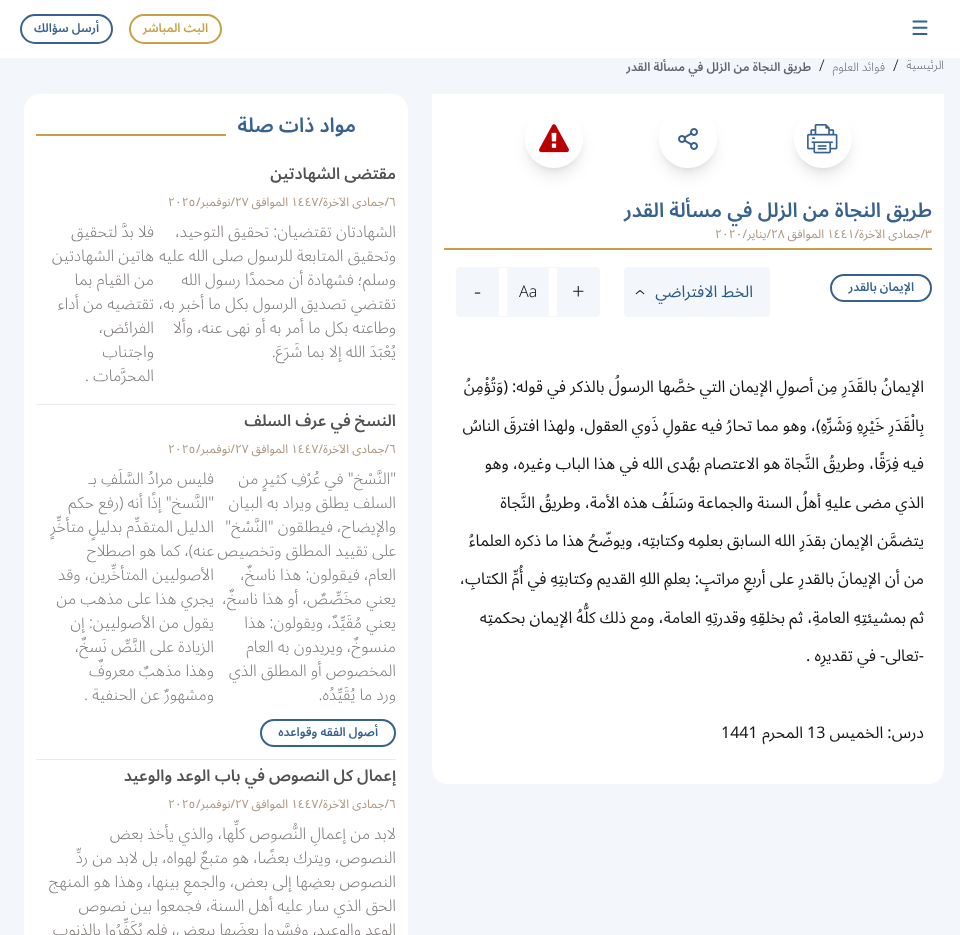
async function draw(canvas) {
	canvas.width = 960;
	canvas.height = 935;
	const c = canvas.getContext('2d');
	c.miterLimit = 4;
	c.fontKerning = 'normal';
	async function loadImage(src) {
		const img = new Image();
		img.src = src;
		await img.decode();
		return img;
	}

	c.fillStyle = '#f3f6fa';
	c.fillRect(0, 0, 960, 935);
	c.fillStyle = '#fff';
	c.fillRect(0, 0, 960, 58);
	c.font = '20px DejaVu Sans';
	c.fillStyle = '#37618f';
	c.fillText('☰', 911, 35);
	c.beginPath();
	c.roundRect(130, 15, 91, 28, 14);
	c.strokeStyle = '#c99e47';
	c.lineWidth = 2;
	c.stroke();
	c.direction = 'rtl';
	c.font = '600 12px Noto Sans Arabic';
	c.fillStyle = '#c99e47';
	c.fillText('البث المباشر', 208, 32);
	c.beginPath();
	c.roundRect(21, 15, 91, 28, 14);
	c.strokeStyle = '#37618f';
	c.stroke();
	c.fillStyle = '#37618f';
	c.fillText('أرسل سؤالك', 99, 32);
	c.font = '300 12px Noto Sans Arabic';
	c.fillStyle = '#63636f';
	c.fillText('الرئيسية', 944, 69);
	c.direction = 'ltr';
	c.font = '300 16px Noto Sans Arabic';
	c.fillStyle = '#161616';
	c.fillText('/', 893, 71);
	c.direction = 'rtl';
	c.font = '300 12px Noto Sans Arabic';
	c.fillStyle = '#63636f';
	c.fillText('فوائد العلوم', 885, 71);
	c.direction = 'ltr';
	c.font = '300 16px Noto Sans Arabic';
	c.fillStyle = '#161616';
	c.fillText('/', 819, 71);
	c.direction = 'rtl';
	c.font = '600 12px Noto Sans Arabic';
	c.fillStyle = '#63636f';
	c.fillText('طريق النجاة من الزلل في مسألة القدر', 811, 71);
	c.fillStyle = '#fff';
	c.beginPath();
	c.roundRect(432, 94, 512, 690, 16);
	c.fill();
	c.fillRect(432, 94, 512, 14);
	c.save();
	c.beginPath();
	c.moveTo(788, 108);
	c.lineTo(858, 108);
	c.lineTo(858, 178);
	c.lineTo(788, 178);
	c.closePath();
	c.moveTo(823, 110);
	c.bezierCurveTo(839, 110, 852, 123, 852, 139);
	c.bezierCurveTo(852, 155, 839, 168, 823, 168);
	c.bezierCurveTo(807, 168, 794, 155, 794, 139);
	c.bezierCurveTo(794, 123, 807, 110, 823, 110);
	c.closePath();
	c.clip('evenodd');
	c.fillStyle = '#0000001a';
	c.filter = 'blur(3px)';
	c.beginPath();
	c.roundRect(798, 118, 50, 50, 25);
	c.fill();
	c.filter = 'none';
	c.restore();
	c.save();
	c.beginPath();
	c.moveTo(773, 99);
	c.lineTo(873, 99);
	c.lineTo(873, 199);
	c.lineTo(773, 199);
	c.closePath();
	c.moveTo(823, 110);
	c.bezierCurveTo(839, 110, 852, 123, 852, 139);
	c.bezierCurveTo(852, 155, 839, 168, 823, 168);
	c.bezierCurveTo(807, 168, 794, 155, 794, 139);
	c.bezierCurveTo(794, 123, 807, 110, 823, 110);
	c.closePath();
	c.clip('evenodd');
	c.fillStyle = '#0000001a';
	c.filter = 'blur(7.5px)';
	c.beginPath();
	c.roundRect(797, 123, 52, 52, 26);
	c.fill();
	c.filter = 'none';
	c.restore();
	c.drawImage(await loadImage('img1.png'), 807, 124, 31, 30);
	c.save();
	c.beginPath();
	c.moveTo(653, 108);
	c.lineTo(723, 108);
	c.lineTo(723, 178);
	c.lineTo(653, 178);
	c.closePath();
	c.moveTo(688, 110);
	c.bezierCurveTo(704, 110, 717, 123, 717, 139);
	c.bezierCurveTo(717, 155, 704, 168, 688, 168);
	c.bezierCurveTo(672, 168, 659, 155, 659, 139);
	c.bezierCurveTo(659, 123, 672, 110, 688, 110);
	c.closePath();
	c.clip('evenodd');
	c.fillStyle = '#0000001a';
	c.filter = 'blur(3px)';
	c.beginPath();
	c.roundRect(663, 118, 50, 50, 25);
	c.fill();
	c.filter = 'none';
	c.restore();
	c.save();
	c.beginPath();
	c.moveTo(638, 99);
	c.lineTo(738, 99);
	c.lineTo(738, 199);
	c.lineTo(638, 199);
	c.closePath();
	c.moveTo(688, 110);
	c.bezierCurveTo(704, 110, 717, 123, 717, 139);
	c.bezierCurveTo(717, 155, 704, 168, 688, 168);
	c.bezierCurveTo(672, 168, 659, 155, 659, 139);
	c.bezierCurveTo(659, 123, 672, 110, 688, 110);
	c.closePath();
	c.clip('evenodd');
	c.fillStyle = '#0000001a';
	c.filter = 'blur(7.5px)';
	c.beginPath();
	c.roundRect(662, 123, 52, 52, 26);
	c.fill();
	c.filter = 'none';
	c.restore();
	c.drawImage(await loadImage('img2.png'), 678, 128, 20, 22);
	c.save();
	c.beginPath();
	c.moveTo(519, 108);
	c.lineTo(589, 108);
	c.lineTo(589, 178);
	c.lineTo(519, 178);
	c.closePath();
	c.moveTo(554, 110);
	c.bezierCurveTo(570, 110, 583, 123, 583, 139);
	c.bezierCurveTo(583, 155, 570, 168, 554, 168);
	c.bezierCurveTo(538, 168, 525, 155, 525, 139);
	c.bezierCurveTo(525, 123, 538, 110, 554, 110);
	c.closePath();
	c.clip('evenodd');
	c.fillStyle = '#0000001a';
	c.filter = 'blur(3px)';
	c.beginPath();
	c.roundRect(529, 118, 50, 50, 25);
	c.fill();
	c.filter = 'none';
	c.restore();
	c.save();
	c.beginPath();
	c.moveTo(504, 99);
	c.lineTo(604, 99);
	c.lineTo(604, 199);
	c.lineTo(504, 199);
	c.closePath();
	c.moveTo(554, 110);
	c.bezierCurveTo(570, 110, 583, 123, 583, 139);
	c.bezierCurveTo(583, 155, 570, 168, 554, 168);
	c.bezierCurveTo(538, 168, 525, 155, 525, 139);
	c.bezierCurveTo(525, 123, 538, 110, 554, 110);
	c.closePath();
	c.clip('evenodd');
	c.fillStyle = '#0000001a';
	c.filter = 'blur(7.5px)';
	c.beginPath();
	c.roundRect(528, 123, 52, 52, 26);
	c.fill();
	c.filter = 'none';
	c.restore();
	c.drawImage(await loadImage('img3.png'), 539, 124, 30, 29);
	c.fillStyle = '#c99e47';
	c.fillRect(444, 248, 488, 2);
	c.font = '600 20px Noto Sans Arabic';
	c.fillStyle = '#37618f';
	c.fillText('طريق النجاة من الزلل في مسألة القدر', 932, 217);
	c.direction = 'ltr';
	c.font = '12px Noto Sans Arabic';
	c.fillStyle = '#ad9780';
	c.fillText('٣', 925, 238);
	c.direction = 'rtl';
	c.fillText('/جمادى الآخرة/', 925, 238);
	c.direction = 'ltr';
	c.fillText('١٤٤١', 827, 238);
	c.direction = 'rtl';
	c.fillText('الموافق', 824, 238);
	c.direction = 'ltr';
	c.fillText('٢٨', 771, 238);
	c.direction = 'rtl';
	c.fillText('/يناير/', 771, 238);
	c.direction = 'ltr';
	c.fillText('٢٠٢٠', 715, 238);
	c.beginPath();
	c.roundRect(831, 275, 100, 26, 13);
	c.stroke();
	c.direction = 'rtl';
	c.font = '600 12px Noto Sans Arabic';
	c.fillStyle = '#37618f';
	c.fillText('الإيمان بالقدر', 914, 291);
	c.fillStyle = '#f3f6fa';
	c.beginPath();
	c.roundRect(624.5, 267.5, 145, 49, 3.5);
	c.fill();
	c.strokeStyle = '#f3f6fa';
	c.lineWidth = 1;
	c.stroke();
	c.font = '16px Noto Sans Arabic';
	c.fillStyle = '#2a5a89';
	c.fillText('الخط الافتراضي', 753, 297);
	c.direction = 'ltr';
	c.font = '300 22px Noto Sans Arabic';
	c.fillStyle = '#161616';
	c.save();
	c.translate(646, 295);
	c.rotate(-90 * Math.PI / 180);
	c.fillText('›', 0, 0);
	c.restore();
	c.beginPath();
	c.roundRect(456.5, 267.5, 143, 49, 3.5);
	c.stroke();
	c.fillStyle = '#f3f6fa';
	c.beginPath();
	c.roundRect(557, 268, 42, 48, [0, 4, 4, 0]);
	c.fill();
	c.fillStyle = '#161616';
	c.fillText('+', 572, 299);
	c.fillStyle = '#f3f6fa';
	c.fillRect(507, 268, 42, 48);
	c.font = '300 16px Noto Sans Arabic';
	c.fillStyle = '#161616';
	c.fillText('Aa', 519, 297);
	c.fillStyle = '#f3f6fa';
	c.beginPath();
	c.roundRect(457, 268, 42, 48, [4, 0, 0, 4]);
	c.fill();
	c.font = '300 22px Noto Sans Arabic';
	c.fillStyle = '#161616';
	c.fillText('-', 474, 299);
	c.direction = 'rtl';
	c.font = '16px Noto Sans Arabic';
	for (const [text, x, y] of [
		['الإيمانُ بالقَدَرِ مِن أصولِ الإيمان التي خصَّها الرسولُ بالذكر في قوله:', 924, 392],
		['(وَتُؤْمِنُ', 508, 392],
		['بِالْقَدَرِ خَيْرِهِ وَشَرِّهِ)', 924, 431],
		['، وهو مما تحارُ فيه عقولِ ذَوي العقول، ولهذا افترقَ الناسُ', 816, 431],
		['فيه فِرَقًا، وطريقُ النَّجاة هو الاعتصام بهُدى الله في هذا الباب وغيره، وهو', 924, 469],
		['الذي مضى عليهِ أهلُ السنة والجماعة وسَلَفُ هذه الأمة، وطريقُ النَّجاة', 924, 508],
		['يتضمَّن الإيمان بقدَرِ الله السابق بعلمِه وكتابتِه، ويوضّحُ هذا ما ذكره العلماءُ', 924, 546],
		['من أن الإيمانَ بالقدرِ على أربعِ مراتبٍ: بعلمِ اللهِ القديم وكتابتِهِ في أُمِّ الكتابِ،', 924, 584],
		['ثم بمشيئتِهِ العامةِ، ثم بخلقِهِ وقدرتِهِ العامة، ومع ذلك كلُّهُ الإيمان بحكمتِه', 924, 623],
		['-تعالى- في تقديرِه .', 924, 661],
		['درس: الخميس', 924, 738],
	]) {
		c.fillText(text, x, y);
	}
	c.direction = 'ltr';
	c.fillText('13', 807, 738);
	c.direction = 'rtl';
	c.fillText('المحرم', 803, 738);
	c.direction = 'ltr';
	c.fillText('1441', 721, 738);
	c.fillStyle = '#fff';
	c.beginPath();
	c.roundRect(24, 94, 384, 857, 16);
	c.fill();
	c.direction = 'rtl';
	c.font = '600 20px Noto Sans Arabic';
	c.fillStyle = '#37618f';
	c.fillText('مواد ذات صلة', 356, 132);
	c.fillStyle = '#c99e47';
	c.fillRect(36, 134, 190, 2);
	c.fillStyle = '#e6ebf2';
	c.fillRect(36, 404, 360, 1);
	c.font = '600 16px Noto Sans Arabic';
	c.fillStyle = '#525252';
	c.fillText('مقتضى الشهادتين', 396, 179);
	c.direction = 'ltr';
	c.font = '12px Noto Sans Arabic';
	c.fillStyle = '#ad9780';
	c.fillText('٦', 389, 206);
	c.fillText('١٤٤٧', 291, 206);
	c.direction = 'rtl';
	c.fillText('/جمادى الآخرة/', 389, 206);
	c.fillText('الموافق', 288, 206);
	c.direction = 'ltr';
	c.fillText('٢٧', 235, 206);
	c.direction = 'rtl';
	c.fillText('/نوفمبر/', 235, 206);
	c.direction = 'ltr';
	c.fillText('٢٠٢٥', 168, 206);
	c.direction = 'rtl';
	c.font = '300 16px Noto Sans Arabic';
	c.fillStyle = '#7b7676';
	for (const [text, x, y] of [
		['الشهادتان تقتضيان: تحقيق التوحيد،', 396, 237],
		['وتحقيق المتابعة للرسول صلى الله عليه', 396, 261],
		['وسلم؛ فشهادة أن محمدًا رسول الله', 396, 285],
		['تقتضي تصديق الرسول بكل ما أخبر به،', 396, 309],
		['وطاعته بكل ما أمر به أو نهى عنه، وألا', 396, 333],
		['يُعْبَدَ الله إلا بما شَرَعَ.', 396, 357],
		['فلا بدَّ لتحقيق', 154, 237],
		['هاتين الشهادتين', 154, 261],
		['من القيام بما', 154, 285],
		['تقتضيه من أداء', 154, 309],
		['الفرائض،', 154, 333],
		['واجتناب', 154, 357],
		['المحرَّمات .', 154, 381],
	]) {
		c.fillText(text, x, y);
	}
	c.fillStyle = '#e6ebf2';
	c.fillRect(36, 759, 360, 1);
	c.font = '600 16px Noto Sans Arabic';
	c.fillStyle = '#525252';
	c.fillText('النسخ في عرف السلف', 396, 426);
	c.direction = 'ltr';
	c.font = '12px Noto Sans Arabic';
	c.fillStyle = '#ad9780';
	c.fillText('٦', 389, 453);
	c.fillText('١٤٤٧', 291, 453);
	c.direction = 'rtl';
	c.fillText('/جمادى الآخرة/', 389, 453);
	c.fillText('الموافق', 288, 453);
	c.direction = 'ltr';
	c.fillText('٢٧', 235, 453);
	c.direction = 'rtl';
	c.fillText('/نوفمبر/', 235, 453);
	c.direction = 'ltr';
	c.fillText('٢٠٢٥', 168, 453);
	c.direction = 'rtl';
	c.font = '300 16px Noto Sans Arabic';
	c.fillStyle = '#7b7676';
	for (const [text, x, y] of [
		['"النَّسْخ" في عُرْفِ كثيرٍ من', 396, 484],
		['السلف يطلق ويراد به البيان', 396, 508],
		['والإيضاح، فيطلقون "النَّسْخ"', 396, 532],
		['على تقييد المطلق وتخصيص', 396, 556],
		['العام، فيقولون: هذا ناسخٌ،', 396, 580],
		['يعني مخَصِّصٌ، أو هذا ناسخٌ،', 396, 604],
		['يعني مُقَيِّدٌ، ويقولون: هذا', 396, 628],
		['منسوخٌ، ويريدون به العام', 396, 652],
		['المخصوص أو المطلق الذي', 396, 676],
		['ورد ما يُقَيِّدُه.', 396, 700],
		['فليس مرادُ السَّلَفِ بـ', 214, 484],
		['"النَّسخ" إذًا أنه (رفع حكم', 214, 508],
		['الدليل المتقدِّم بدليلٍ متأخِّرٍ', 214, 532],
		['عنه)، كما هو اصطلاح', 214, 556],
		['الأصوليين المتأخِّرين، وقد', 214, 580],
		['يجري هذا على مذهب من', 214, 604],
		['يقول من الأصوليين: إن', 214, 628],
		['الزيادة على النَّصِّ نَسخٌ،', 214, 652],
		['وهذا مذهبٌ معروفٌ', 214, 676],
		['ومشهورٌ عن الحنفية .', 214, 700],
	]) {
		c.fillText(text, x, y);
	}
	c.beginPath();
	c.roundRect(261, 720, 134, 26, 13);
	c.strokeStyle = '#37618f';
	c.lineWidth = 2;
	c.stroke();
	c.font = '600 12px Noto Sans Arabic';
	c.fillStyle = '#37618f';
	c.fillText('أصول الفقه وقواعده', 378, 736);
	c.font = '600 16px Noto Sans Arabic';
	c.fillStyle = '#525252';
	c.fillText('إعمال كل النصوص في باب الوعد والوعيد', 396, 781);
	c.direction = 'ltr';
	c.font = '12px Noto Sans Arabic';
	c.fillStyle = '#ad9780';
	c.fillText('٦', 389, 808);
	c.fillText('١٤٤٧', 291, 808);
	c.direction = 'rtl';
	c.fillText('/جمادى الآخرة/', 389, 808);
	c.fillText('الموافق', 288, 808);
	c.direction = 'ltr';
	c.fillText('٢٧', 235, 808);
	c.direction = 'rtl';
	c.fillText('/نوفمبر/', 235, 808);
	c.direction = 'ltr';
	c.fillText('٢٠٢٥', 168, 808);
	c.direction = 'rtl';
	c.font = '300 16px Noto Sans Arabic';
	c.fillStyle = '#7b7676';
	for (const [text, x, y] of [
		['لابد من إعمالِ النُّصوص كلِّها، والذي يأخذ بعض', 396, 839],
		['النصوص، ويترك بعضًا، هو متبعٌ لهواه، بل لابد من ردِّ', 396, 863],
		['النصوص بعضِها إلى بعض، والجمعِ بينها، وهذا هو المنهج', 396, 887],
		['الحق الذي سار عليه أهل السنة، فجمعوا بين نصوص', 396, 911],
		['الوعد والوعيد، وفسَّروا بعضَها ببعض، فلم يُكَفِّرُوا بالذنوب', 396, 935],
	]) {
		c.fillText(text, x, y);
	}
}

draw(document.querySelector('canvas'));
